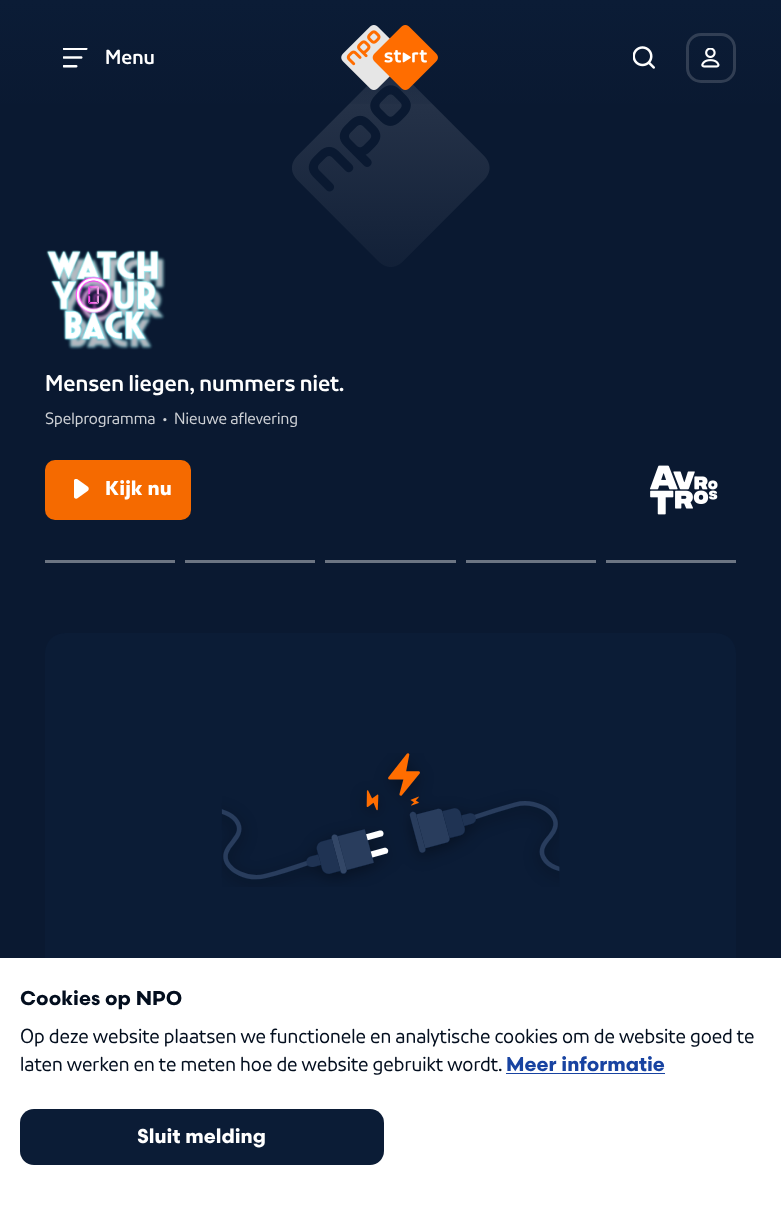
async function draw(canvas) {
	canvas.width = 781;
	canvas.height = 1209;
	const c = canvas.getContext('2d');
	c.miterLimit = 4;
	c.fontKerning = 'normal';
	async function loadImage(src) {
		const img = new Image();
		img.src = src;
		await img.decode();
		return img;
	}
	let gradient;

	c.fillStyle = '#0a1931';
	c.fillRect(0, 0, 781, 1209);
	c.drawImage(await loadImage('img5.png'), 292, 76, 198, 191);
	gradient = c.createLinearGradient(391, 0, 391, 335);
	gradient.addColorStop(0, '#0a193100');
	gradient.addColorStop(1, '#0a1931');
	c.fillStyle = gradient;
	c.fillRect(292, 76, 198, 191);
	gradient = c.createLinearGradient(391, 115, 391, 0);
	gradient.addColorStop(0, '#0b1c3600');
	gradient.addColorStop(1, '#0b1c36');
	c.fillStyle = gradient;
	c.fillRect(0, 0, 781, 104);
	c.drawImage(await loadImage('img1.png'), 63, 48, 25, 20);
	c.font = 'bold 20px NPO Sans';
	c.fillStyle = '#fff';
	c.fillText('Menu', 105, 64);
	c.drawImage(await loadImage('img2.png'), 341, 25, 97, 65);
	c.drawImage(await loadImage('img3.png'), 633, 46, 22, 23);
	c.beginPath();
	c.roundRect(687.5, 34.5, 47, 47, 13.5);
	c.strokeStyle = '#ffffff29';
	c.lineWidth = 3;
	c.stroke();
	c.drawImage(await loadImage('img4.png'), 701, 48, 19, 20);
	c.drawImage(await loadImage('img6.png'), 46, 250, 120, 100);
	c.font = 'bold 22.5px NPO Sans';
	c.fillText('Mensen liegen, nummers niet.', 45, 391);
	c.font = '16.25px NPO Sans';
	c.fillStyle = '#ced1d6';
	for (const [text, x, y] of [
		['Spelprogramma', 45, 424],
		['•', 163, 424],
		['Nieuwe aflevering', 174, 424],
	]) {
		c.fillText(text, x, y);
	}
	c.fillStyle = '#f56a00';
	c.beginPath();
	c.roundRect(45, 460, 146, 60, 10);
	c.fill();
	c.drawImage(await loadImage('img7.png'), 74, 479, 15, 20);
	c.font = 'bold 20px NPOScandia';
	c.fillStyle = '#fff';
	c.fillText('Kijk nu', 105, 495);
	c.drawImage(await loadImage('img8.png'), 650, 465, 68, 50);
	for (const [x, y, w, h, color] of [
		[45, 560, 130, 3, '#6c7583'],
		[185, 560, 130, 3, '#6c7583'],
		[325, 560, 131, 3, '#6c7583'],
		[466, 560, 130, 3, '#6c7583'],
		[606, 560, 130, 3, '#6c7583'],
	]) {
		c.fillStyle = color;
		c.fillRect(x, y, w, h);
	}
	c.fillStyle = '#0b1c36';
	c.beginPath();
	c.roundRect(45, 633, 691, 575, 20);
	c.fill();
	c.drawImage(await loadImage('img9.png'), 221, 753, 339, 134);
	c.fillStyle = '#fff';
	c.fillRect(0, 958, 781, 251);
	c.fillStyle = '#030e1e';
	c.fillText('Cookies op NPO', 20, 1005);
	c.font = '20px NPO Sans';
	c.fillText('Op deze website plaatsen we functionele en analytische cookies om de website goed te', 20, 1043);
	c.fillText('laten werken en te meten hoe de website gebruikt wordt.', 20, 1071);
	c.font = 'bold 20px NPOScandia';
	c.fillStyle = '#1843a1';
	c.fillText('Meer informatie', 506, 1071);
	c.fillRect(506, 1073, 159, 1);
	c.fillStyle = '#0b1c36';
	c.beginPath();
	c.roundRect(20, 1109, 364, 56, 14);
	c.fill();
	c.fillStyle = '#fff';
	c.fillText('Sluit melding', 137, 1143);
}

draw(document.querySelector('canvas'));
